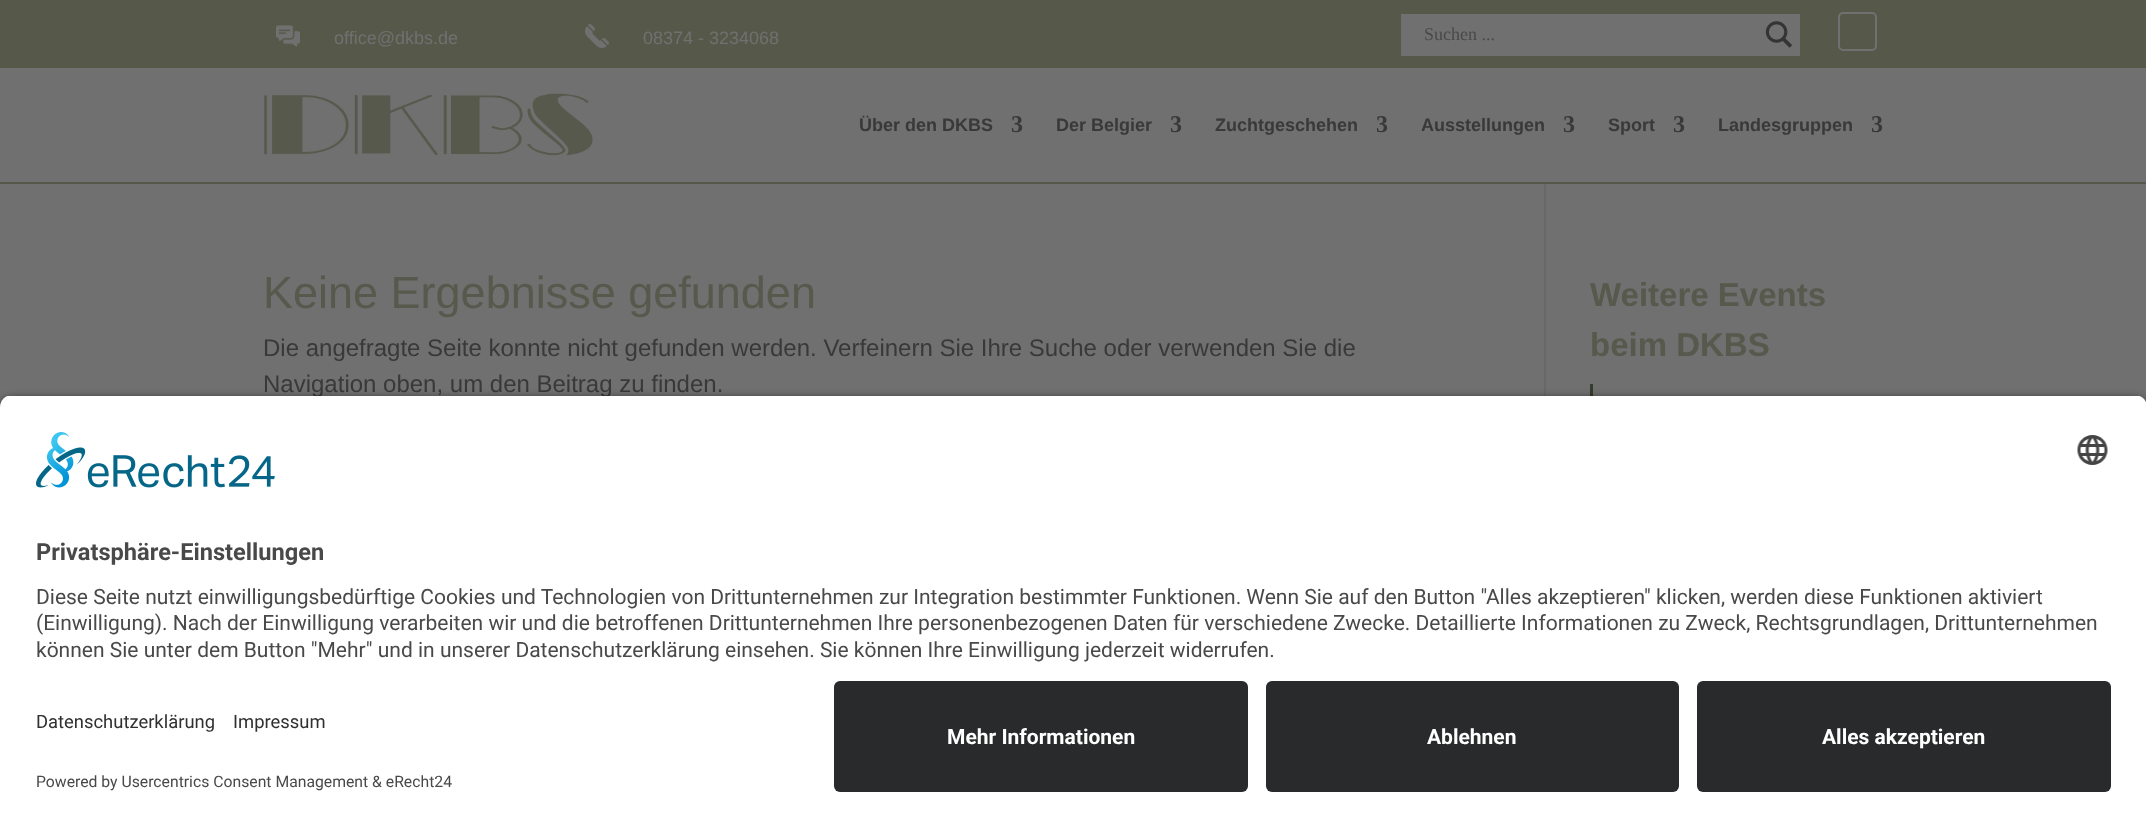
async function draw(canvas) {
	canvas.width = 2146;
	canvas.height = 828;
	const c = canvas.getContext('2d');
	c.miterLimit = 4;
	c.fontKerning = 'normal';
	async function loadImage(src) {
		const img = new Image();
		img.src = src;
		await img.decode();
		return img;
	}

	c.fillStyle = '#707070';
	c.fillRect(0, 0, 2146, 828);
	c.fillStyle = '#56594a';
	c.fillRect(0, 0, 2146, 68);
	c.drawImage(await loadImage('img1.png'), 276, 25, 24, 22);
	c.font = '18px Liberation Sans';
	c.fillStyle = '#707070';
	c.fillText('office@dkbs.de', 334, 44);
	c.drawImage(await loadImage('img2.png'), 585, 24, 24, 24);
	c.fillText('08374 - 3234068', 643, 44);
	c.fillRect(1401, 14, 399, 42);
	c.font = '18px Liberation Serif';
	c.fillStyle = '#494949';
	c.fillText('Suchen ...', 1424, 40);
	c.drawImage(await loadImage('img3.png'), 1765, 21, 28, 27);
	c.beginPath();
	c.roundRect(1839, 13, 37, 37, 4);
	c.strokeStyle = '#707070';
	c.lineWidth = 2;
	c.stroke();
	c.fillStyle = '#686868';
	c.fillRect(1544, 183, 2, 213);
	c.fillStyle = '#56594a';
	c.fillRect(0, 182, 2146, 2);
	c.drawImage(await loadImage('img4.png'), 264, 93, 329, 63);
	c.font = 'bold 18px Liberation Sans';
	c.fillStyle = '#393939';
	c.fillText('Über den DKBS', 859, 131);
	c.font = 'bold 24px Liberation Serif';
	c.fillText('3', 1011, 132);
	c.font = 'bold 18px Liberation Sans';
	c.fillText('Der Belgier', 1056, 131);
	c.font = 'bold 24px Liberation Serif';
	c.fillText('3', 1170, 132);
	c.font = 'bold 18px Liberation Sans';
	c.fillText('Zuchtgeschehen', 1215, 131);
	c.font = 'bold 24px Liberation Serif';
	c.fillText('3', 1376, 132);
	c.font = 'bold 18px Liberation Sans';
	c.fillText('Ausstellungen', 1421, 131);
	c.font = 'bold 24px Liberation Serif';
	c.fillText('3', 1563, 132);
	c.font = 'bold 18px Liberation Sans';
	c.fillText('Sport', 1608, 131);
	c.font = 'bold 24px Liberation Serif';
	c.fillText('3', 1673, 132);
	c.font = 'bold 18px Liberation Sans';
	c.fillText('Landesgruppen', 1718, 131);
	c.font = 'bold 24px Liberation Serif';
	c.fillText('3', 1871, 132);
	c.font = '45px Liberation Sans';
	c.fillStyle = '#56594c';
	c.fillText('Keine Ergebnisse gefunden', 263, 308);
	c.font = '24px Liberation Sans';
	c.fillStyle = '#393939';
	c.fillText('Die angefragte Seite konnte nicht gefunden werden. Verfeinern Sie Ihre Suche oder verwenden Sie die', 263, 356);
	c.fillText('Navigation oben, um den Beitrag zu finden.', 263, 392);
	c.font = 'bold 33px Liberation Sans';
	c.fillStyle = '#56594c';
	c.fillText('Weitere Events', 1590, 306);
	c.fillText('beim DKBS', 1590, 356);
	c.fillStyle = '#353d2e';
	c.fillRect(1590, 384, 3, 12);
	c.fillStyle = '#000000cc';
	c.filter = 'blur(5px)';
	c.beginPath();
	c.roundRect(0, 399, 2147, 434, 12);
	c.fill();
	c.filter = 'none';
	c.save();
	c.beginPath();
	c.moveTo(12, 395);
	c.lineTo(2135, 395);
	c.bezierCurveTo(2141.5, 395, 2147, 400.5, 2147, 407);
	c.lineTo(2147, 669);
	c.lineTo(0, 669);
	c.lineTo(0, 407);
	c.bezierCurveTo(0, 400.5, 5.5, 395, 12, 395);
	c.closePath();
	c.clip();
	c.fillStyle = '#fff';
	c.fillRect(0, 396, 2146, 273);
	c.restore();
	c.drawImage(await loadImage('img5.png'), 36, 432, 239, 56);
	c.drawImage(await loadImage('img6.png'), 2077, 435, 31, 30);
	c.font = 'bold 23.6px Roboto';
	c.fillStyle = '#494949';
	c.fillText('Privatsphäre-Einstellungen', 36, 560);
	c.font = '21px Roboto';
	for (const [text, x, y] of [
		['Diese Seite nutzt einwilligungsbedürftige Cookies und Technologien von Drittunternehmen zur Integration bestimmter Funktionen. Wenn Sie auf den Button "Alles akzeptieren" klicken, werden diese Funktionen aktiviert', 36, 604],
		['(Einwilligung). Nach der Einwilligung verarbeiten wir und die betroffenen Drittunternehmen Ihre personenbezogenen Daten für verschiedene Zwecke. Detaillierte Informationen zu Zweck, Rechtsgrundlagen, Drittunternehmen', 36, 630],
		['können Sie unter dem Button "Mehr" und in unserer Datenschutzerklärung einsehen. Sie können Ihre Einwilligung jederzeit widerrufen.', 36, 657],
	]) {
		c.fillText(text, x, y);
	}
	c.fillStyle = '#fff';
	c.fillRect(0, 669, 2146, 159);
	c.font = '18.4px Roboto';
	c.fillStyle = '#303030';
	c.fillText('Datenschutzerklärung', 36, 728);
	c.fillText('Impressum', 233, 728);
	c.font = '15.75px Roboto';
	c.fillStyle = '#494949';
	c.fillText('Powered by Usercentrics Consent Management & eRecht24', 36, 787);
	c.fillStyle = '#292a2b';
	c.beginPath();
	c.roundRect(834, 681, 414, 111, 6);
	c.fill();
	c.font = 'bold 21px Roboto';
	c.fillStyle = '#fff';
	c.fillText('Mehr Informationen', 947, 744);
	c.fillStyle = '#292a2b';
	c.beginPath();
	c.roundRect(1266, 681, 413, 111, 6);
	c.fill();
	c.fillStyle = '#fff';
	c.fillText('Ablehnen', 1427, 744);
	c.fillStyle = '#292a2b';
	c.beginPath();
	c.roundRect(1697, 681, 414, 111, 6);
	c.fill();
	c.fillStyle = '#fff';
	c.fillText('Alles akzeptieren', 1822, 744);
}

draw(document.querySelector('canvas'));
